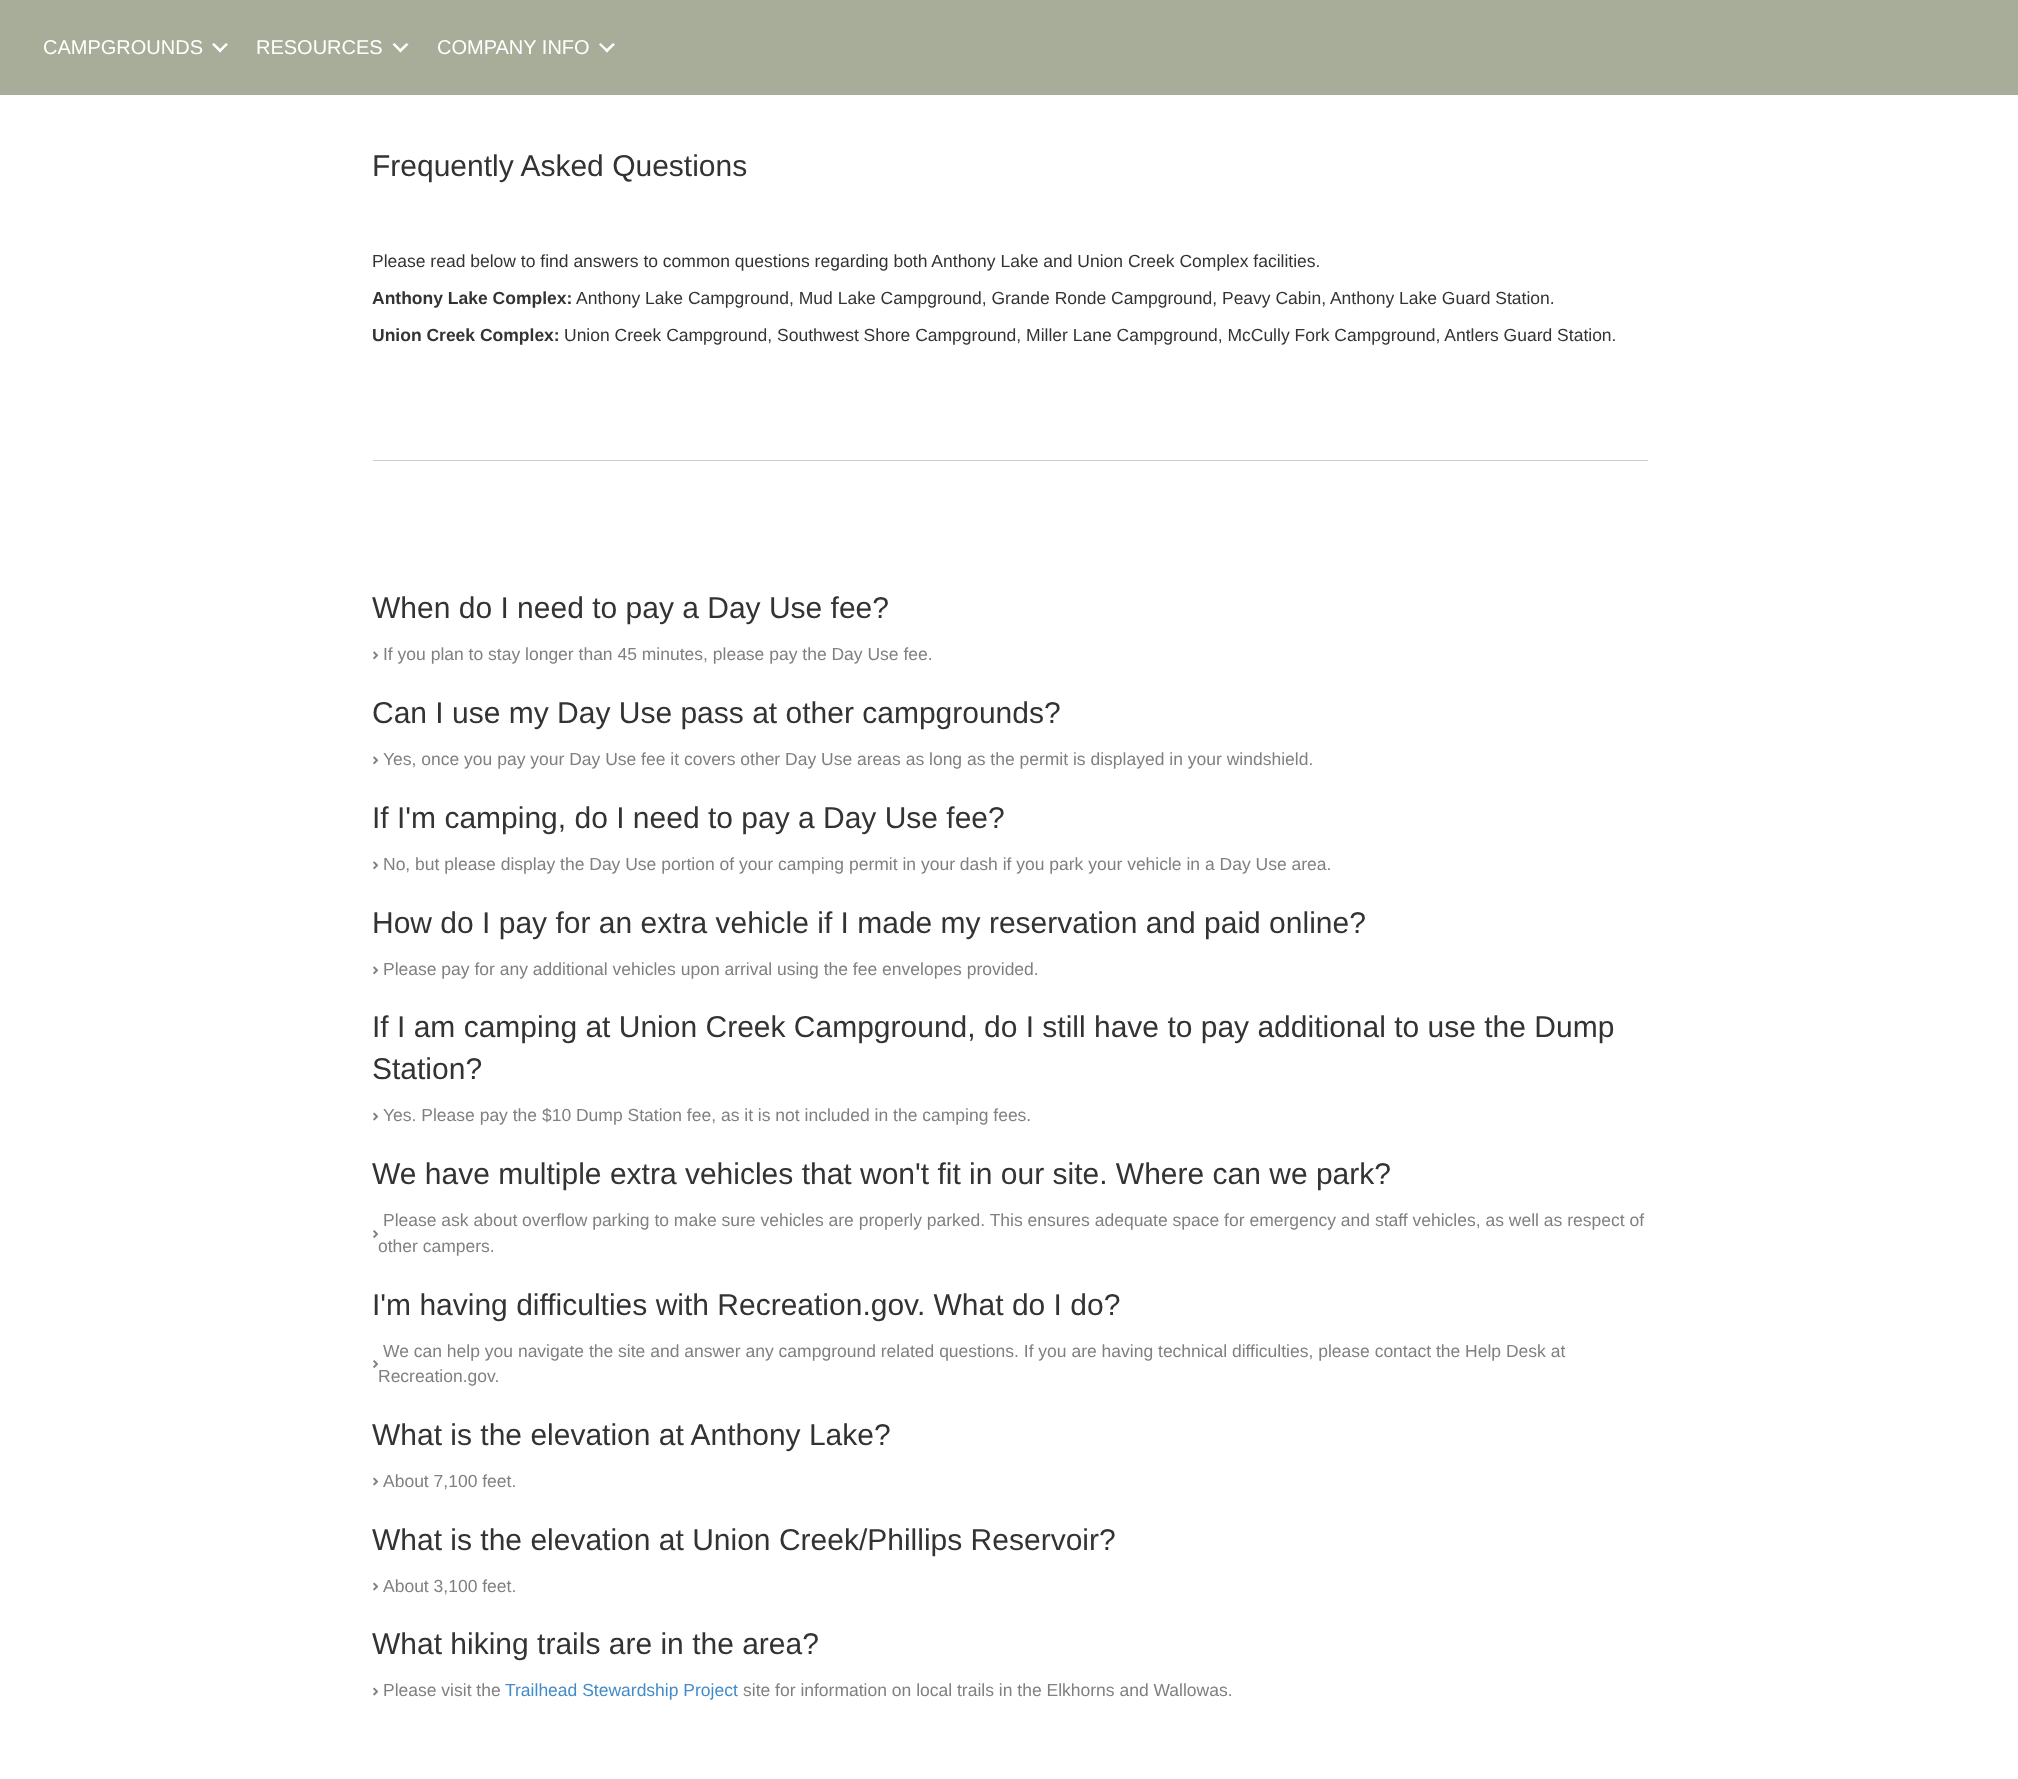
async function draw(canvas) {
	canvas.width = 2018;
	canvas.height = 1779;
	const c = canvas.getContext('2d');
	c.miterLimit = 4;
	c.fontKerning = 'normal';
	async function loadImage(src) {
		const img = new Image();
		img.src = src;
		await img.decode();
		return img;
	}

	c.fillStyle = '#fff';
	c.fillRect(0, 0, 2018, 1779);
	c.fillStyle = '#a7ad98';
	c.fillRect(0, 0, 2018, 95);
	c.font = '20px Liberation Sans';
	c.fillStyle = '#fff';
	c.fillText('CAMPGROUNDS', 43, 54);
	c.beginPath();
	c.moveTo(226, 43);
	c.lineTo(228, 44.5);
	c.lineTo(220, 52.5);
	c.lineTo(218.5, 50.5);
	c.closePath();
	c.fill();
	c.beginPath();
	c.moveTo(214, 43);
	c.lineTo(222, 50.5);
	c.lineTo(220, 52.5);
	c.lineTo(212, 44.5);
	c.closePath();
	c.fill();
	c.fillText('RESOURCES', 256, 54);
	c.beginPath();
	c.moveTo(406.5, 43);
	c.lineTo(408.5, 44.5);
	c.lineTo(400.5, 52.5);
	c.lineTo(398.5, 50.5);
	c.closePath();
	c.fill();
	c.beginPath();
	c.moveTo(394.5, 43);
	c.lineTo(402, 50.5);
	c.lineTo(400.5, 52.5);
	c.lineTo(392.5, 44.5);
	c.closePath();
	c.fill();
	c.fillText('COMPANY INFO', 437, 54);
	c.beginPath();
	c.moveTo(613, 43);
	c.lineTo(615, 44.5);
	c.lineTo(607, 52.5);
	c.lineTo(605, 50.5);
	c.closePath();
	c.fill();
	c.beginPath();
	c.moveTo(600.5, 43);
	c.lineTo(608.5, 50.5);
	c.lineTo(607, 52.5);
	c.lineTo(599, 44.5);
	c.closePath();
	c.fill();
	c.font = '30px Liberation Sans';
	c.fillStyle = '#333';
	c.fillText('Frequently Asked Questions', 372, 176);
	c.font = '17.5px Liberation Sans';
	c.fillText('Please read below to find answers to common questions regarding both Anthony Lake and Union Creek Complex facilities.', 372, 267);
	c.font = 'bold 17.5px Liberation Sans';
	c.fillText('Anthony Lake Complex:', 372, 304);
	c.font = '17.5px Liberation Sans';
	c.fillText('Anthony Lake Campground, Mud Lake Campground, Grande Ronde Campground, Peavy Cabin, Anthony Lake Guard Station.', 576, 304);
	c.font = 'bold 17.5px Liberation Sans';
	c.fillText('Union Creek Complex:', 372, 341);
	c.font = '17.5px Liberation Sans';
	c.fillText('Union Creek Campground, Southwest Shore Campground, Miller Lane Campground, McCully Fork Campground, Antlers Guard Station.', 564, 341);
	c.fillStyle = '#ccc';
	c.fillRect(373, 460, 1275, 1);
	c.font = '30px Liberation Sans';
	c.fillStyle = '#333';
	c.fillText('When do I need to pay a Day Use fee?', 372, 618);
	c.drawImage(await loadImage('img1.png'), 373, 651, 6, 9);
	c.font = '17.5px Liberation Sans';
	c.fillStyle = '#808080';
	c.fillText('If you plan to stay longer than 45 minutes, please pay the Day Use fee.', 383, 660);
	c.font = '30px Liberation Sans';
	c.fillStyle = '#333';
	c.fillText('Can I use my Day Use pass at other campgrounds?', 372, 723);
	c.drawImage(await loadImage('img1.png'), 373, 756, 6, 9);
	c.font = '17.5px Liberation Sans';
	c.fillStyle = '#808080';
	c.fillText('Yes, once you pay your Day Use fee it covers other Day Use areas as long as the permit is displayed in your windshield.', 383, 765);
	c.font = '30px Liberation Sans';
	c.fillStyle = '#333';
	c.fillText('If I\'m camping, do I need to pay a Day Use fee?', 372, 828);
	c.drawImage(await loadImage('img1.png'), 373, 861, 6, 9);
	c.font = '17.5px Liberation Sans';
	c.fillStyle = '#808080';
	c.fillText('No, but please display the Day Use portion of your camping permit in your dash if you park your vehicle in a Day Use area.', 383, 870);
	c.font = '30px Liberation Sans';
	c.fillStyle = '#333';
	c.fillText('How do I pay for an extra vehicle if I made my reservation and paid online?', 372, 933);
	c.drawImage(await loadImage('img1.png'), 373, 966, 6, 9);
	c.font = '17.5px Liberation Sans';
	c.fillStyle = '#808080';
	c.fillText('Please pay for any additional vehicles upon arrival using the fee envelopes provided.', 383, 975);
	c.font = '30px Liberation Sans';
	c.fillStyle = '#333';
	c.fillText('If I am camping at Union Creek Campground, do I still have to pay additional to use the Dump', 372, 1037);
	c.fillText('Station?', 372, 1079);
	c.drawImage(await loadImage('img2.png'), 373, 1112, 6, 9);
	c.font = '17.5px Liberation Sans';
	c.fillStyle = '#808080';
	c.fillText('Yes. Please pay the $10 Dump Station fee, as it is not included in the camping fees.', 383, 1121);
	c.font = '30px Liberation Sans';
	c.fillStyle = '#333';
	c.fillText('We have multiple extra vehicles that won\'t fit in our site. Where can we park?', 372, 1184);
	c.drawImage(await loadImage('img3.png'), 373, 1230, 5, 8);
	c.font = '17.5px Liberation Sans';
	c.fillStyle = '#808080';
	c.fillText('Please ask about overflow parking to make sure vehicles are properly parked. This ensures adequate space for emergency and staff vehicles, as well as respect of', 383, 1226);
	c.fillText('other campers.', 378, 1252);
	c.font = '30px Liberation Sans';
	c.fillStyle = '#333';
	c.fillText('I\'m having difficulties with Recreation.gov. What do I do?', 372, 1315);
	c.drawImage(await loadImage('img3.png'), 373, 1360, 5, 8);
	c.font = '17.5px Liberation Sans';
	c.fillStyle = '#808080';
	c.fillText('We can help you navigate the site and answer any campground related questions. If you are having technical difficulties, please contact the Help Desk at', 383, 1357);
	c.fillText('Recreation.gov.', 378, 1382);
	c.font = '30px Liberation Sans';
	c.fillStyle = '#333';
	c.fillText('What is the elevation at Anthony Lake?', 372, 1445);
	c.drawImage(await loadImage('img2.png'), 373, 1477, 6, 9);
	c.font = '17.5px Liberation Sans';
	c.fillStyle = '#808080';
	c.fillText('About 7,100 feet.', 383, 1487);
	c.font = '30px Liberation Sans';
	c.fillStyle = '#333';
	c.fillText('What is the elevation at Union Creek/Phillips Reservoir?', 372, 1550);
	c.drawImage(await loadImage('img2.png'), 373, 1582, 6, 9);
	c.font = '17.5px Liberation Sans';
	c.fillStyle = '#808080';
	c.fillText('About 3,100 feet.', 383, 1592);
	c.font = '30px Liberation Sans';
	c.fillStyle = '#333';
	c.fillText('What hiking trails are in the area?', 372, 1654);
	c.drawImage(await loadImage('img2.png'), 373, 1687, 6, 9);
	c.font = '17.5px Liberation Sans';
	c.fillStyle = '#808080';
	c.fillText('Please visit the', 383, 1696);
	c.fillStyle = '#428bca';
	c.fillText('Trailhead Stewardship Project', 505, 1696);
	c.fillStyle = '#808080';
	c.fillText('site for information on local trails in the Elkhorns and Wallowas.', 743, 1696);
}

draw(document.querySelector('canvas'));
